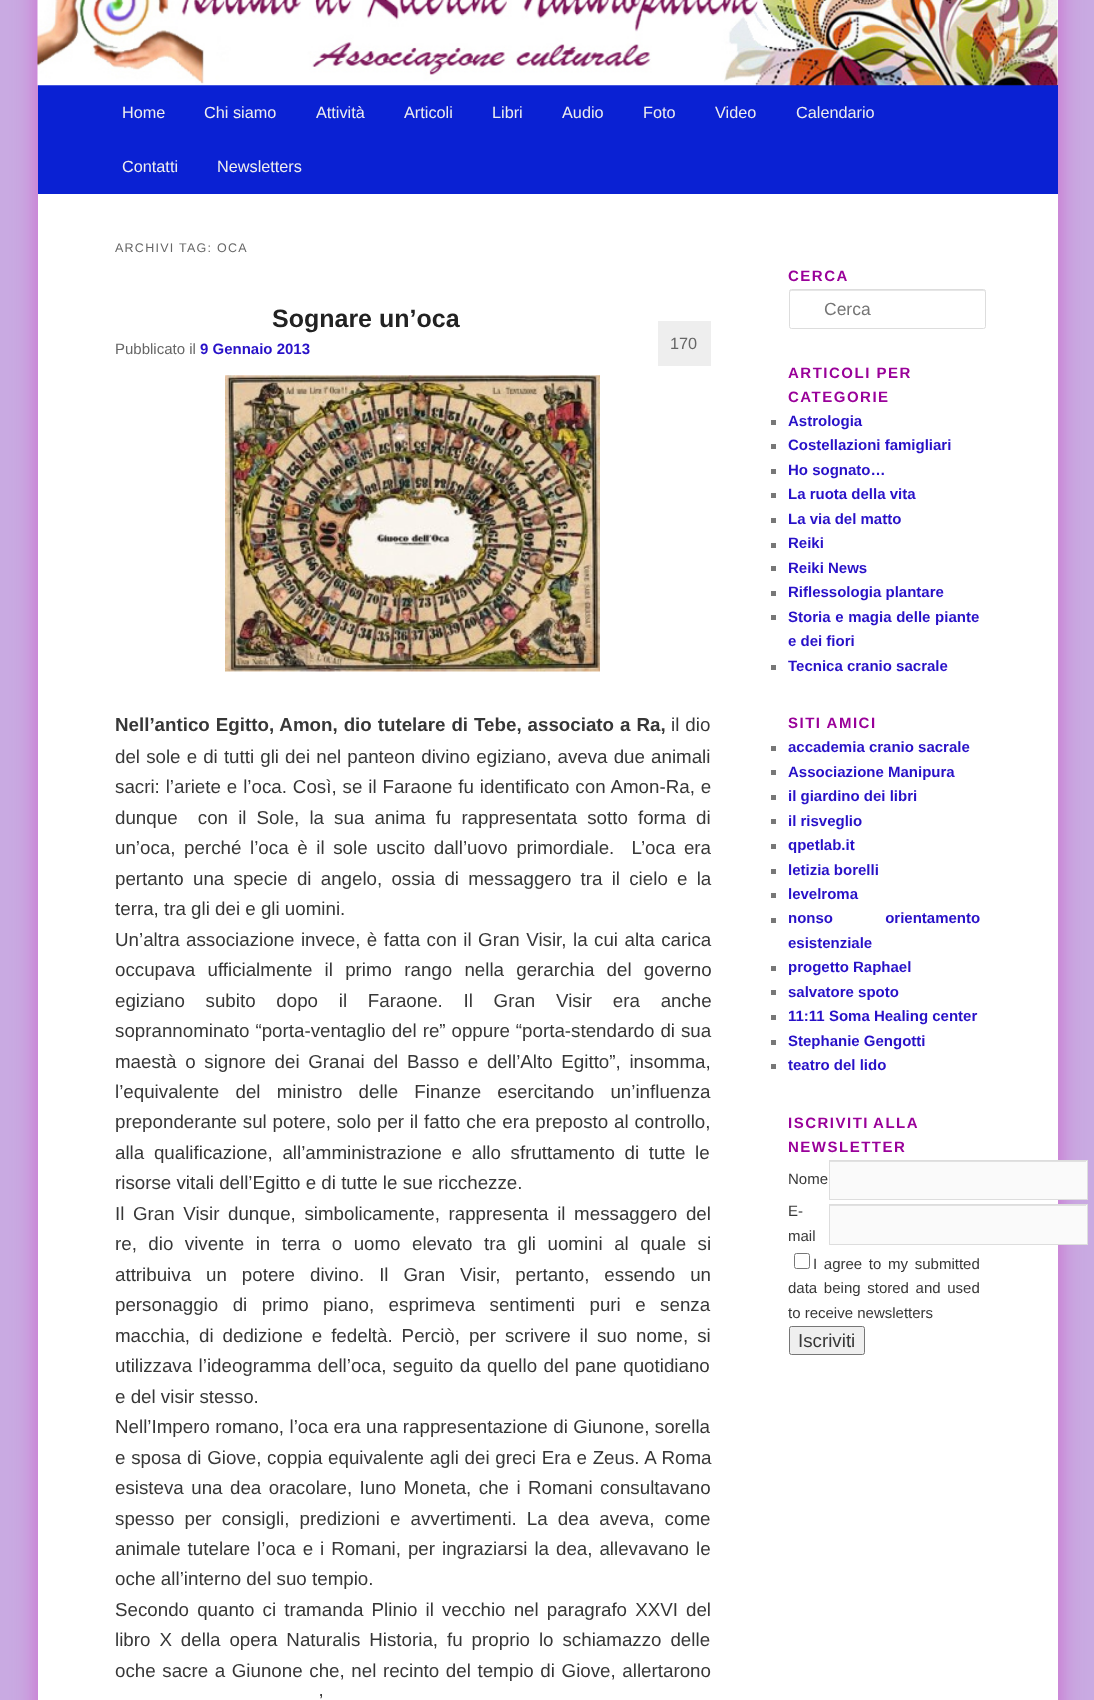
async function draw(canvas) {
	canvas.width = 1094;
	canvas.height = 1700;
	const c = canvas.getContext('2d');
	c.miterLimit = 4;
	c.fontKerning = 'normal';
	async function loadImage(src) {
		const img = new Image();
		img.src = src;
		await img.decode();
		return img;
	}

	c.fillStyle = '#c9aae2';
	c.fillRect(0, 0, 1094, 1700);
	c.fillStyle = '#c6c';
	c.filter = 'blur(12.5px)';
	c.beginPath();
	c.roundRect(38, -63, 1020, 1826, 25);
	c.fill();
	c.filter = 'none';
	c.fillStyle = '#fff';
	c.fillRect(38, 0, 1020, 1700);
	c.fillStyle = '#0a21d3';
	c.fillRect(38, 85, 1020, 109);
	c.drawImage(await loadImage('img1.png'), 37, 0, 1021, 86);
	c.font = '16.25px Liberation Sans';
	c.fillStyle = '#eee';
	for (const [text, x, y] of [
		['Home', 122, 118],
		['Chi siamo', 204, 118],
		['Attività', 316, 118],
		['Articoli', 404, 118],
		['Libri', 492, 118],
		['Audio', 562, 118],
		['Foto', 643, 118],
		['Video', 715, 118],
		['Calendario', 796, 118],
		['Contatti', 122, 172],
		['Newsletters', 217, 172],
	]) {
		c.fillText(text, x, y);
	}
	c.letterSpacing = '1.25px';
	c.font = '12.5px Liberation Sans';
	c.fillStyle = '#666';
	c.fillText('ARCHIVI TAG: OCA', 115, 252);
	c.letterSpacing = '0px';
	c.font = 'bold 25px Liberation Sans';
	c.fillStyle = '#222';
	c.fillText('Sognare un’oca', 272, 327);
	c.font = '15px Liberation Sans';
	c.fillStyle = '#666';
	c.fillText('Pubblicato il', 115, 354);
	c.font = 'bold 15px Liberation Sans';
	c.fillStyle = '#2811c8';
	c.fillText('9 Gennaio 2013', 200, 354);
	c.fillStyle = '#eee';
	c.fillRect(658, 321, 53, 45);
	c.font = '16.25px Liberation Sans';
	c.fillStyle = '#666';
	c.fillText('170', 670, 349);
	c.drawImage(await loadImage('img2.png'), 225, 375, 375, 297);
	c.wordSpacing = '0.75px';
	c.font = 'bold 18.75px Liberation Sans';
	c.fillStyle = '#373737';
	c.fillText('Nell’antico Egitto, Amon, dio tutelare di Tebe, associato a Ra,', 115, 731);
	c.font = '18.75px Liberation Sans';
	c.fillText('il dio', 671, 731);
	c.wordSpacing = '0.9px';
	c.fillText('del sole e di tutti gli dei nel panteon divino egiziano, aveva due animali', 115, 763);
	c.wordSpacing = '0.7px';
	c.fillText('sacri: l’ariete e l’oca. Così, se il Faraone fu identificato con Amon-Ra, e', 115, 793);
	c.wordSpacing = '4.9px';
	c.fillText('dunque  con il Sole, la sua anima fu rappresentata sotto forma di', 115, 824);
	c.wordSpacing = '3.4px';
	c.fillText('un’oca, perché l’oca è il sole uscito dall’uovo primordiale.  L’oca era', 115, 854);
	c.wordSpacing = '4px';
	c.fillText('pertanto una specie di angelo, ossia di messaggero tra il cielo e la', 115, 885);
	c.wordSpacing = '0px';
	c.fillText('terra, tra gli dei e gli uomini.', 115, 915);
	c.wordSpacing = '1.25px';
	c.fillText('Un’altra associazione invece, è fatta con il Gran Visir, la cui alta carica', 115, 946);
	c.wordSpacing = '7px';
	c.fillText('occupava ufficialmente il primo rango nella gerarchia del governo', 115, 976);
	c.wordSpacing = '15.5px';
	c.fillText('egiziano subito dopo il Faraone. Il Gran Visir era anche', 115, 1007);
	c.wordSpacing = '0.75px';
	c.fillText('soprannominato “porta-ventaglio del re” oppure “porta-stendardo di sua', 115, 1037);
	c.wordSpacing = '3.5px';
	c.fillText('maestà o signore dei Granai del Basso e dell’Alto Egitto”, insomma,', 115, 1068);
	c.wordSpacing = '11px';
	c.fillText('l’equivalente del ministro delle Finanze esercitando un’influenza', 115, 1098);
	c.wordSpacing = '0.6px';
	c.fillText('preponderante sul potere, solo per il fatto che era preposto al controllo,', 115, 1128);
	c.wordSpacing = '4.5px';
	c.fillText('alla qualificazione, all’amministrazione e allo sfruttamento di tutte le', 115, 1159);
	c.wordSpacing = '0px';
	c.fillText('risorse vitali dell’Egitto e di tutte le sue ricchezze.', 115, 1189);
	c.wordSpacing = '3.4px';
	c.fillText('Il Gran Visir dunque, simbolicamente, rappresenta il messaggero del', 115, 1220);
	c.wordSpacing = '6.25px';
	c.fillText('re, dio vivente in terra o uomo elevato tra gli uomini al quale si', 115, 1250);
	c.wordSpacing = '9.75px';
	c.fillText('attribuiva un potere divino. Il Gran Visir, pertanto, essendo un', 115, 1281);
	c.wordSpacing = '9.25px';
	c.fillText('personaggio di primo piano, esprimeva sentimenti puri e senza', 115, 1311);
	c.wordSpacing = '3.75px';
	c.fillText('macchia, di dedizione e fedeltà. Perciò, per scrivere il suo nome, si', 115, 1342);
	c.wordSpacing = '1.25px';
	c.fillText('utilizzava l’ideogramma dell’oca, seguito da quello del pane quotidiano', 115, 1372);
	c.wordSpacing = '0px';
	c.fillText('e del visir stesso.', 115, 1403);
	c.wordSpacing = '0.25px';
	c.fillText('Nell’Impero romano, l’oca era una rappresentazione di Giunone, sorella', 115, 1433);
	c.wordSpacing = '0.5px';
	c.fillText('e sposa di Giove, coppia equivalente agli dei greci Era e Zeus. A Roma', 115, 1464);
	c.wordSpacing = '2.25px';
	c.fillText('esisteva una dea oracolare, Iuno Moneta, che i Romani consultavano', 115, 1494);
	c.wordSpacing = '4.9px';
	c.fillText('spesso per consigli, predizioni e avvertimenti. La dea aveva, come', 115, 1525);
	c.wordSpacing = '1.75px';
	c.fillText('animale tutelare l’oca e i Romani, per ingraziarsi la dea, allevavano le', 115, 1555);
	c.wordSpacing = '0px';
	c.fillText('oche all’interno del suo tempio.', 115, 1585);
	c.wordSpacing = '2.9px';
	c.fillText('Secondo quanto ci tramanda Plinio il vecchio nel paragrafo XXVI del', 115, 1616);
	c.wordSpacing = '3.75px';
	c.fillText('libro X della opera Naturalis Historia, fu proprio lo schiamazzo delle', 115, 1646);
	c.wordSpacing = '1.4px';
	c.fillText('oche sacre a Giunone che, nel recinto del tempio di Giove, allertarono', 115, 1677);
	c.wordSpacing = '0px';
	c.fillText('’', 319, 1707);
	c.letterSpacing = '1.5px';
	c.font = 'bold 15px Liberation Sans';
	c.fillStyle = '#909';
	c.fillText('CERCA', 788, 281);
	c.fillStyle = '#e6e6e6';
	c.beginPath();
	c.moveTo(791, 291);
	c.lineTo(984, 291);
	c.lineTo(985, 292);
	c.bezierCurveTo(985, 291, 985, 290, 984, 290);
	c.lineTo(790, 290);
	c.lineTo(790, 292);
	c.closePath();
	c.fill();
	c.beginPath();
	c.roundRect(789.5, 289.5, 196, 39, 2);
	c.strokeStyle = '#ddd';
	c.stroke();
	c.letterSpacing = '0px';
	c.font = '17.5px Liberation Sans';
	c.fillStyle = '#757575';
	c.fillText('Cerca', 824, 315);
	c.letterSpacing = '1.5px';
	c.font = 'bold 15px Liberation Sans';
	c.fillStyle = '#909';
	c.fillText('ARTICOLI PER', 788, 378);
	c.fillText('CATEGORIE', 788, 402);
	c.fillStyle = '#777';
	c.fillRect(771, 420, 5, 5);
	c.letterSpacing = '0px';
	c.fillStyle = '#2811c8';
	c.fillText('Astrologia', 788, 426);
	c.fillStyle = '#777';
	c.fillRect(771, 444, 5, 5);
	c.fillStyle = '#2811c8';
	c.fillText('Costellazioni famigliari', 788, 450);
	c.fillStyle = '#777';
	c.fillRect(771, 469, 5, 5);
	c.fillStyle = '#2811c8';
	c.fillText('Ho sognato…', 788, 475);
	c.fillStyle = '#777';
	c.fillRect(771, 493, 5, 5);
	c.fillStyle = '#2811c8';
	c.fillText('La ruota della vita', 788, 499);
	c.fillStyle = '#777';
	c.fillRect(771, 518, 5, 5);
	c.fillStyle = '#2811c8';
	c.fillText('La via del matto', 788, 524);
	c.fillStyle = '#777';
	c.fillRect(771, 543, 5, 5);
	c.fillStyle = '#2811c8';
	c.fillText('Reiki', 788, 548);
	c.fillStyle = '#777';
	c.fillRect(771, 566, 5, 5);
	c.fillStyle = '#2811c8';
	c.fillText('Reiki News', 788, 573);
	c.fillStyle = '#777';
	c.fillRect(771, 591, 5, 5);
	c.fillStyle = '#2811c8';
	c.fillText('Riflessologia plantare', 788, 597);
	c.fillStyle = '#777';
	c.fillRect(771, 615, 5, 5);
	c.wordSpacing = '0.5px';
	c.fillStyle = '#2811c8';
	c.fillText('Storia e magia delle piante', 788, 622);
	c.wordSpacing = '0px';
	c.fillText('e dei fiori', 788, 646);
	c.fillStyle = '#777';
	c.fillRect(771, 665, 5, 5);
	c.fillStyle = '#2811c8';
	c.fillText('Tecnica cranio sacrale', 788, 671);
	c.letterSpacing = '1.5px';
	c.fillStyle = '#909';
	c.fillText('SITI AMICI', 788, 728);
	c.fillStyle = '#777';
	c.fillRect(771, 746, 5, 5);
	c.letterSpacing = '0px';
	c.fillStyle = '#2811c8';
	c.fillText('accademia cranio sacrale', 788, 752);
	c.fillStyle = '#777';
	c.fillRect(771, 770, 5, 5);
	c.fillStyle = '#2811c8';
	c.fillText('Associazione Manipura', 788, 777);
	c.fillStyle = '#777';
	c.fillRect(771, 795, 5, 5);
	c.fillStyle = '#2811c8';
	c.fillText('il giardino dei libri', 788, 801);
	c.fillStyle = '#777';
	c.fillRect(771, 819, 5, 5);
	c.fillStyle = '#2811c8';
	c.fillText('il risveglio', 788, 826);
	c.fillStyle = '#777';
	c.fillRect(771, 844, 5, 5);
	c.fillStyle = '#2811c8';
	c.fillText('qpetlab.it', 788, 850);
	c.fillStyle = '#777';
	c.fillRect(771, 869, 5, 5);
	c.fillStyle = '#2811c8';
	c.fillText('letizia borelli', 788, 875);
	c.fillStyle = '#777';
	c.fillRect(771, 893, 5, 5);
	c.fillStyle = '#2811c8';
	c.fillText('levelroma', 788, 899);
	c.fillStyle = '#777';
	c.fillRect(771, 918, 5, 5);
	c.wordSpacing = '48px';
	c.fillStyle = '#2811c8';
	c.fillText('nonso orientamento', 788, 923);
	c.wordSpacing = '0px';
	c.fillText('esistenziale', 788, 948);
	c.fillStyle = '#777';
	c.fillRect(771, 966, 5, 5);
	c.fillStyle = '#2811c8';
	c.fillText('progetto Raphael', 788, 972);
	c.fillStyle = '#777';
	c.fillRect(771, 990, 5, 5);
	c.fillStyle = '#2811c8';
	c.fillText('salvatore spoto', 788, 997);
	c.fillStyle = '#777';
	c.fillRect(771, 1015, 5, 5);
	c.fillStyle = '#2811c8';
	c.fillText('11:11 Soma Healing center', 788, 1021);
	c.fillStyle = '#777';
	c.fillRect(771, 1040, 5, 5);
	c.fillStyle = '#2811c8';
	c.fillText('Stephanie Gengotti', 788, 1046);
	c.fillStyle = '#777';
	c.fillRect(771, 1064, 5, 5);
	c.fillStyle = '#2811c8';
	c.fillText('teatro del lido', 788, 1070);
	c.letterSpacing = '1.5px';
	c.wordSpacing = '-1px';
	c.fillStyle = '#909';
	c.fillText('ISCRIVITI ALLA', 788, 1128);
	c.wordSpacing = '0px';
	c.fillText('NEWSLETTER', 788, 1152);
	c.letterSpacing = '0px';
	c.font = '15px Liberation Sans';
	c.fillStyle = '#373737';
	c.fillText('Nome', 788, 1184);
	c.fillStyle = '#fafafa';
	c.fillRect(830, 1161, 257, 38);
	c.fillStyle = '#e1e1e1';
	c.fillRect(830, 1161, 256, 1);
	c.strokeRect(829.5, 1160.5, 258, 39);
	c.fillStyle = '#373737';
	c.fillText('E-', 788, 1216);
	c.fillText('mail', 788, 1241);
	c.fillStyle = '#fafafa';
	c.fillRect(830, 1205, 257, 39);
	c.fillStyle = '#e1e1e1';
	c.fillRect(830, 1205, 256, 1);
	c.strokeRect(829.5, 1204.5, 258, 40);
	c.beginPath();
	c.roundRect(794.5, 1253.5, 15, 15, 2);
	c.strokeStyle = '#767676';
	c.stroke();
	c.wordSpacing = '2.5px';
	c.fillStyle = '#373737';
	c.fillText('I agree to my submitted', 813, 1269);
	c.fillText('data being stored and used', 788, 1293);
	c.wordSpacing = '0px';
	c.fillText('to receive newsletters', 788, 1318);
	c.fillStyle = '#efefef';
	c.beginPath();
	c.roundRect(789.5, 1326.5, 75, 28, 2);
	c.fill();
	c.stroke();
	c.font = '18.75px Liberation Sans';
	c.fillStyle = '#373737';
	c.fillText('Iscriviti', 798, 1347);
}

draw(document.querySelector('canvas'));
